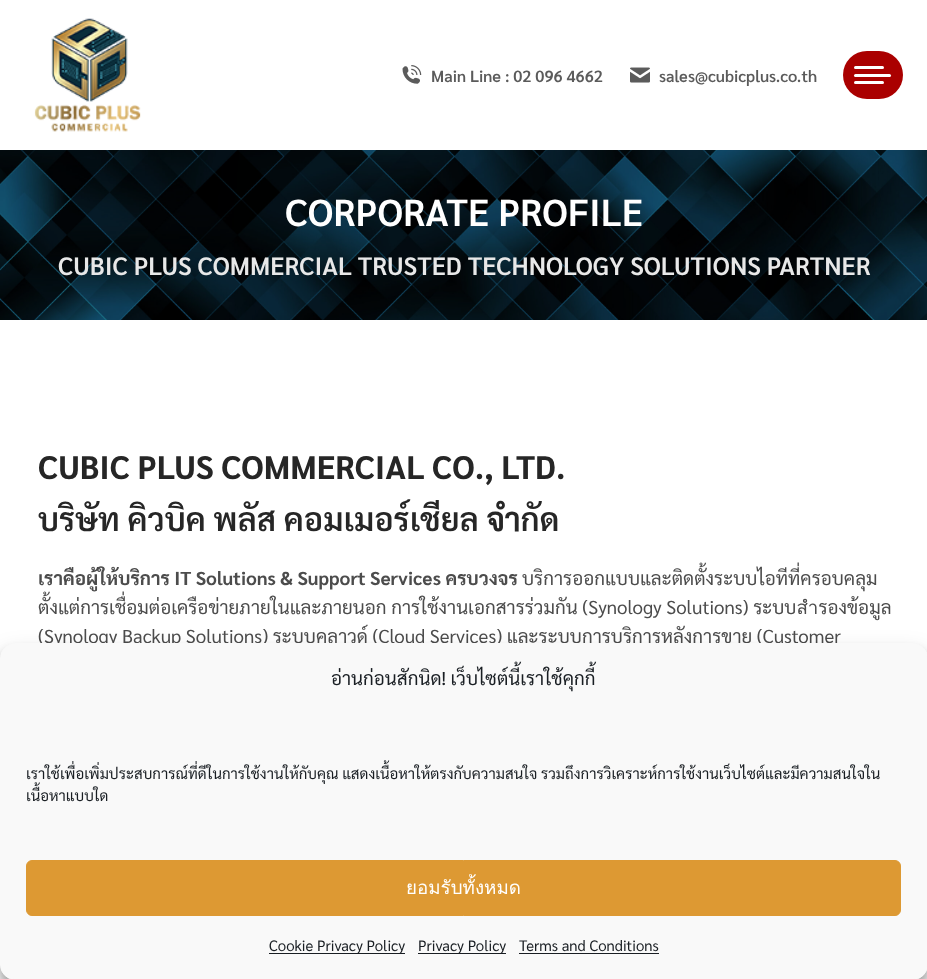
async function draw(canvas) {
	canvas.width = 927;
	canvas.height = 979;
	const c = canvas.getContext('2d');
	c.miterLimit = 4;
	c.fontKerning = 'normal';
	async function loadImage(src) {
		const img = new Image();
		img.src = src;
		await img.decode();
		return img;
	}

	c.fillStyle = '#fff';
	c.fillRect(0, 0, 927, 979);
	c.drawImage(await loadImage('img1.png'), 34, 18, 107, 114);
	c.drawImage(await loadImage('img2.png'), 402, 65, 20, 19);
	c.font = '600 16.25px Sarabun';
	c.fillStyle = '#5b5b5b';
	c.fillText('Main Line : 02 096 4662', 431, 82);
	c.drawImage(await loadImage('img3.png'), 630, 67, 20, 16);
	c.fillText('sales@cubicplus.co.th', 659, 82);
	c.fillStyle = '#a00';
	c.beginPath();
	c.roundRect(843, 51, 60, 48, 24);
	c.fill();
	c.fillStyle = '#fff';
	c.beginPath();
	c.roundRect(854, 66, 30, 3, 1.5);
	c.fill();
	c.beginPath();
	c.roundRect(854, 74, 37, 3, 1.5);
	c.fill();
	c.beginPath();
	c.roundRect(854, 81, 30, 3, 1.5);
	c.fill();
	c.drawImage(await loadImage('img4.png'), 0, 150, 927, 170);
	c.font = '600 37.5px Sarabun';
	c.fillText('CORPORATE PROFILE', 285, 226);
	c.font = '600 25px Sarabun';
	c.fillStyle = '#e8e8e8';
	c.fillText('CUBIC PLUS COMMERCIAL TRUSTED TECHNOLOGY SOLUTIONS PARTNER', 58, 275);
	c.font = 'bold 32.5px Sarabun';
	c.fillStyle = '#262626';
	c.fillText('CUBIC PLUS COMMERCIAL CO., LTD.', 38, 479);
	c.font = '600 32.5px Sarabun';
	c.fillText('บริษัท คิวบิค พลัส คอมเมอร์เชียล จำกัด', 38, 531);
	c.font = 'bold 18.75px Sarabun';
	c.fillStyle = '#4c4c4c';
	c.fillText('เราคือผู้ให้บริการ IT Solutions & Support Services ครบวงจร', 38, 585);
	c.font = '18.75px Sarabun';
	for (const [text, x, y] of [
		['บริการออกแบบและติดตั้งระบบไอทีที่ครอบคลุม', 522, 585],
		['ตั้งแต่การเชื่อมต่อเครือข่ายภายในและภายนอก การใช้งานเอกสารร่วมกัน (Synology Solutions) ระบบสำรองข้อมูล', 38, 614],
		['(Synology Backup Solutions) ระบบคลาวด์ (Cloud Services) และระบบการบริการหลังการขาย (Customer', 38, 643],
	]) {
		c.fillText(text, x, y);
	}
	c.fillStyle = '#0000003b';
	c.filter = 'blur(4px)';
	c.beginPath();
	c.roundRect(0, 650, 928, 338, 15);
	c.fill();
	c.filter = 'none';
	c.fillStyle = '#00000030';
	c.filter = 'blur(12.5px)';
	c.beginPath();
	c.roundRect(0, 655, 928, 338, 15);
	c.fill();
	c.filter = 'none';
	c.fillStyle = '#f9f9f9';
	c.beginPath();
	c.roundRect(0.5, 643.5, 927, 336, 14.5);
	c.fill();
	c.strokeStyle = '#f9f9f9';
	c.stroke();
	c.fillStyle = '#191e23';
	c.fillText('อ่านก่อนสักนิด! เว็บไซต์นี้เราใช้คุกกี้', 331, 685);
	c.font = '15px Sarabun';
	c.fillText('เราใช้เพื่อเพิ่มประสบการณ์ที่ดีในการใช้งานให้กับคุณ แสดงเนื้อหาให้ตรงกับความสนใจ รวมถึงการวิเคราะห์การใช้งานเว็บไซต์และมีความสนใจใน', 26, 779);
	c.save();
	c.beginPath();
	c.rect(26, 716, 875, 119);
	c.clip();
	c.fillText('เนื้อหาแบบใด', 26, 801);
	c.restore();
	c.fillStyle = '#d93';
	c.beginPath();
	c.roundRect(26.5, 860.5, 874, 55, 5.5);
	c.fill();
	c.strokeStyle = '#d93';
	c.stroke();
	c.font = '18.75px Loma';
	c.fillStyle = '#fff';
	c.fillText('ยอมรับทั้งหมด', 406, 894);
	c.fillStyle = '#191e23';
	c.fillRect(269, 953, 136, 1);
	c.font = '15px Sarabun';
	c.fillText('Cookie Privacy Policy', 269, 951);
	c.fillRect(418, 953, 88, 1);
	c.fillText('Privacy Policy', 418, 951);
	c.fillText('Terms and Conditions', 519, 951);
	c.fillRect(519, 953, 140, 1);
}

draw(document.querySelector('canvas'));
